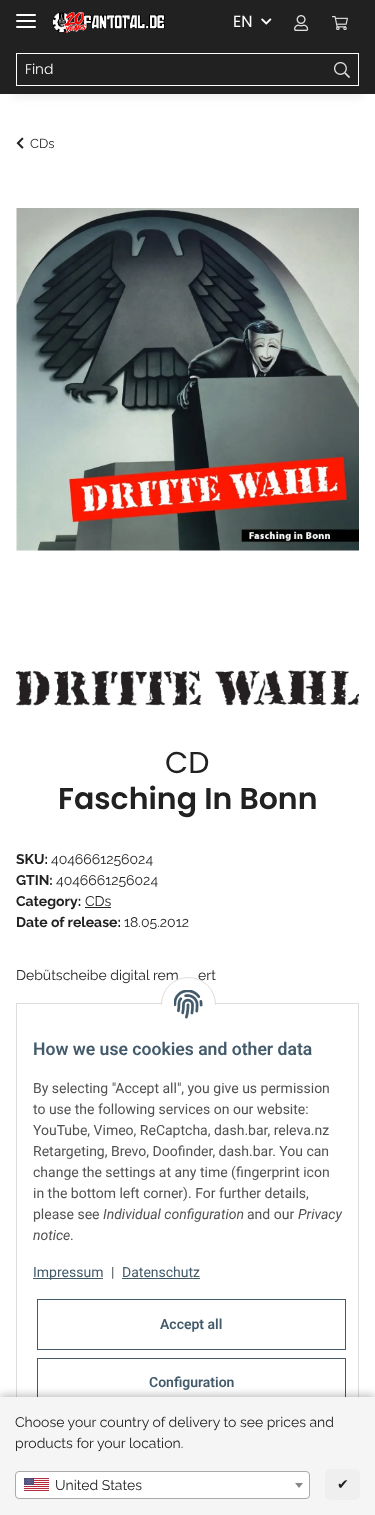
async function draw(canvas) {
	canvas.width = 375;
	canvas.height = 1515;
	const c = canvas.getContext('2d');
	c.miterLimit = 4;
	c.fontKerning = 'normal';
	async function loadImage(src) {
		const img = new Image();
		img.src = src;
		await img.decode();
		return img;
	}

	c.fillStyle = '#fff';
	c.fillRect(0, 0, 375, 1515);
	c.fillStyle = '#0000000f';
	c.filter = 'blur(4.5px)';
	c.beginPath();
	c.rect(12, 28, 351, 70);
	c.fill();
	c.filter = 'none';
	c.fillStyle = '#212121';
	c.fillRect(0, 0, 375, 94);
	c.fillStyle = '#fff';
	c.beginPath();
	c.roundRect(16, 20, 20, 2, 1);
	c.fill();
	c.beginPath();
	c.roundRect(16, 14, 20, 2, 1);
	c.fill();
	c.beginPath();
	c.roundRect(16, 26, 20, 2, 1);
	c.fill();
	c.drawImage(await loadImage('img1.png'), 52, 12, 113, 21);
	c.font = '16px Poppins';
	c.fillText('EN', 233, 27);
	c.drawImage(await loadImage('img2.png'), 261, 18, 11, 7);
	c.drawImage(await loadImage('img3.png'), 294, 15, 15, 16);
	c.drawImage(await loadImage('img4.png'), 332, 16, 16, 14);
	c.strokeStyle = '#fff';
	c.strokeRect(16.5, 53.5, 310, 32);
	c.font = '300 14px Poppins';
	c.fillText('Find', 25, 74);
	for (const [x, y, w, h, color] of [
		[326, 54, 1, 31, '#212121'],
		[326, 53, 33, 1, '#fff'],
		[358, 53, 1, 33, '#fff'],
		[326, 85, 33, 1, '#fff'],
	]) {
		c.fillStyle = color;
		c.fillRect(x, y, w, h);
	}
	c.drawImage(await loadImage('img5.png'), 334, 62, 16, 16);
	c.drawImage(await loadImage('img6.png'), 16, 137, 8, 12);
	c.font = '13px Raleway';
	c.fillStyle = '#212121';
	c.fillText('CDs', 30, 148);
	c.drawImage(await loadImage('img7.png'), 16, 208, 343, 343);
	c.drawImage(await loadImage('img8.png'), 16, 670, 343, 36);
	c.font = '30px Poppins';
	c.fillText('CD', 165, 773);
	c.font = '600 30px Poppins';
	c.fillText('Fasching In Bonn', 58, 809);
	c.font = 'bold 14px Raleway';
	c.fillText('SKU:', 16, 864);
	c.font = '14px Raleway';
	c.fillText('4046661256024', 51, 864);
	c.font = 'bold 14px Raleway';
	c.fillText('GTIN:', 16, 885);
	c.font = '14px Raleway';
	c.fillText('4046661256024', 56, 885);
	c.font = 'bold 14px Raleway';
	c.fillText('Category:', 16, 906);
	c.font = '14px Raleway';
	c.fillText('CDs', 85, 906);
	c.fillRect(85, 907, 26, 1);
	c.font = 'bold 14px Raleway';
	c.fillText('Date of release:', 16, 927);
	c.font = '14px Raleway';
	for (const [text, x, y] of [
		['18.05.2012', 124, 927],
		['Debütscheibe digital rem', 16, 980],
		['ert', 198, 980],
	]) {
		c.fillText(text, x, y);
	}
	c.strokeStyle = '#ddd';
	c.strokeRect(16.5, 1003.5, 342, 479);
	c.fillStyle = '#fff';
	c.beginPath();
	c.arc(188.5, 1004.5, 27, 0, 2 * Math.PI);
	c.fill();
	c.stroke();
	c.fillRect(161, 1005, 55, 27);
	c.drawImage(await loadImage('img9.png'), 174, 990, 29, 29);
	c.font = '600 17.6px Roboto';
	c.fillStyle = '#435a6b';
	c.fillText('How we use cookies and other data', 33, 1055);
	c.font = '14px Roboto';
	c.fillStyle = '#525252';
	for (const [text, x, y] of [
		['By selecting "Accept all", you give us permission', 33, 1093],
		['to use the following services on our website:', 33, 1114],
		['YouTube, Vimeo, ReCaptcha, dash.bar, releva.nz', 33, 1135],
		['Retargeting, Brevo, Doofinder, dash.bar. You can', 33, 1156],
		['change the settings at any time (fingerprint icon', 33, 1177],
		['in the bottom left corner). For further details,', 33, 1198],
		['please see', 33, 1219],
	]) {
		c.fillText(text, x, y);
	}
	c.font = 'italic 14px Roboto';
	c.fillText('Individual configuration', 103, 1219);
	c.font = '14px Roboto';
	c.fillText('and our', 247, 1219);
	c.font = 'italic 14px Roboto';
	c.fillText('Privacy', 298, 1219);
	c.fillText('notice', 33, 1240);
	c.font = '14px Roboto';
	c.fillText('.', 70, 1240);
	c.fillStyle = '#435a6b';
	c.fillRect(33, 1278, 70, 1);
	c.fillText('Impressum', 33, 1277);
	c.fillStyle = '#525252';
	c.fillText('|', 111, 1277);
	c.fillStyle = '#435a6b';
	c.fillText('Datenschutz', 122, 1277);
	c.fillRect(122, 1278, 78, 1);
	c.strokeStyle = '#435a6b';
	c.strokeRect(37.5, 1299.5, 308, 50);
	c.font = '600 14px Roboto';
	c.fillText('Accept all', 160, 1329);
	c.strokeRect(37.5, 1358.5, 308, 49);
	c.fillText('Configuration', 149, 1387);
	c.fillStyle = '#00000040';
	c.filter = 'blur(4.5px)';
	c.beginPath();
	c.rect(0, 1395, 375, 118);
	c.fill();
	c.filter = 'none';
	c.fillStyle = '#f5f5f5';
	c.fillRect(0, 1397, 375, 118);
	c.font = '14px Raleway';
	c.fillStyle = '#212121';
	c.fillText('Choose your country of delivery to see prices and', 15, 1427);
	c.fillText('products for your location.', 15, 1448);
	c.fillStyle = '#fff';
	c.beginPath();
	c.roundRect(15.5, 1471.5, 294, 27, 3.5);
	c.fill();
	c.strokeStyle = '#aaa';
	c.stroke();
	c.drawImage(await loadImage('img10.png'), 24, 1478, 25, 13);
	c.fillStyle = '#212121';
	c.fillText('United States', 55, 1490);
	c.fillStyle = '#888';
	c.beginPath();
	c.moveTo(295, 1483);
	c.lineTo(303, 1483);
	c.lineTo(299, 1488);
	c.closePath();
	c.fill();
	c.fillStyle = '#efefef';
	c.beginPath();
	c.roundRect(325, 1469, 35, 31, 5);
	c.fill();
	c.font = '14px DejaVu Sans';
	c.fillStyle = '#212121';
	c.fillText('✔', 337, 1489);
}

draw(document.querySelector('canvas'));
